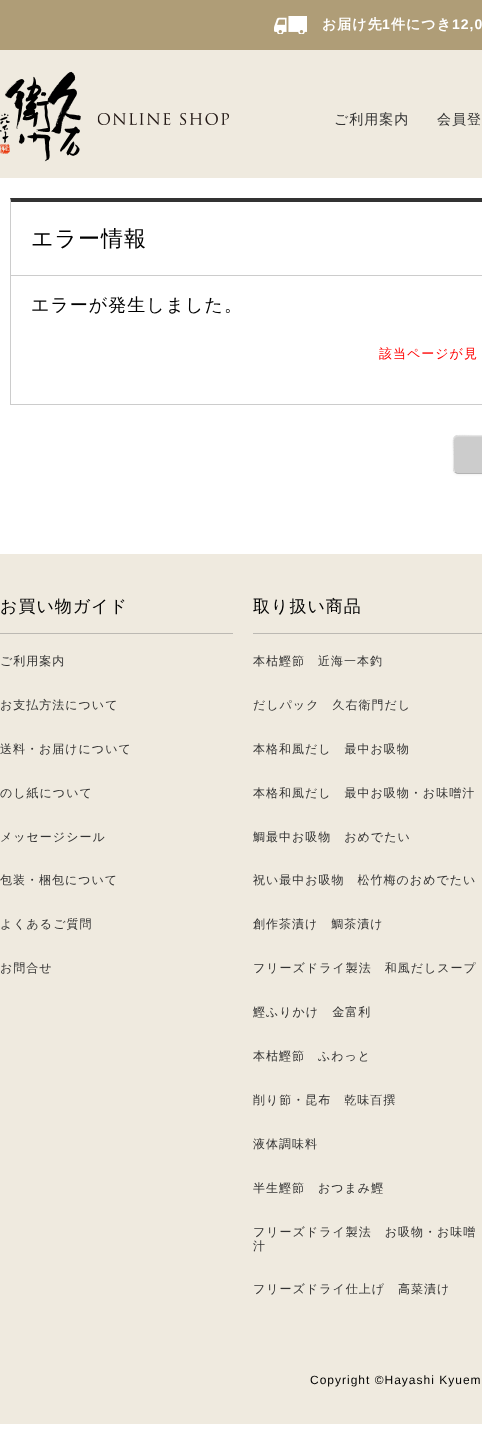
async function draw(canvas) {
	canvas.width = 482;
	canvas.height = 1450;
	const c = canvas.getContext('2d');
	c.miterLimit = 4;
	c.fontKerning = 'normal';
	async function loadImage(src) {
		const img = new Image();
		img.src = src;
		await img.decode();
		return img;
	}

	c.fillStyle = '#fff';
	c.fillRect(0, 0, 482, 1450);
	c.fillStyle = '#af9d77';
	c.fillRect(0, 0, 482, 50);
	c.drawImage(await loadImage('img1.png'), 274, 16, 33, 18);
	c.letterSpacing = '1px';
	c.font = 'bold 14px WenQuanYi Zen Hei';
	c.fillStyle = '#fff';
	c.fillText('お届け先', 322, 29);
	c.font = 'bold 14px Liberation Sans';
	c.fillText('1', 382, 29);
	c.font = 'bold 14px WenQuanYi Zen Hei';
	c.fillText('件につき', 391, 29);
	c.font = 'bold 14px Liberation Sans';
	c.fillText('12,0', 452, 29);
	c.fillStyle = '#efeadf';
	c.fillRect(0, 50, 482, 128);
	c.drawImage(await loadImage('img2.png'), 0, 71, 229, 91);
	c.font = '500 14px WenQuanYi Zen Hei';
	c.fillStyle = '#333';
	c.fillText('ご利用案内', 334, 124);
	c.fillText('会員登', 437, 124);
	c.beginPath();
	c.moveTo(10, 198);
	c.lineTo(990, 198);
	c.lineTo(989, 202);
	c.lineTo(11, 202);
	c.closePath();
	c.fill();
	c.fillStyle = '#ccc';
	c.beginPath();
	c.moveTo(10, 275);
	c.lineTo(10, 198);
	c.lineTo(11, 202);
	c.lineTo(11, 275);
	c.closePath();
	c.fill();
	c.font = '500 22px WenQuanYi Zen Hei';
	c.fillStyle = '#000';
	c.fillText('エラー情報', 31, 246);
	c.strokeStyle = '#ccc';
	c.strokeRect(10.5, 275.5, 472, 129);
	c.font = '500 18px WenQuanYi Zen Hei';
	c.fillText('エラーが発生しました。', 31, 311);
	c.font = '500 13px WenQuanYi Zen Hei';
	c.fillStyle = '#f00';
	c.fillText('該当ページが見', 379, 358);
	c.fillStyle = '#0000000d';
	c.filter = 'blur(1px)';
	c.beginPath();
	c.roundRect(453, 436, 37, 39, 5);
	c.fill();
	c.filter = 'none';
	c.fillStyle = '#ccc';
	c.beginPath();
	c.roundRect(453, 435, 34, 39, 5);
	c.fill();
	c.fillStyle = '#d6d6d6';
	c.beginPath();
	c.moveTo(458, 437);
	c.lineTo(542, 437);
	c.bezierCurveTo(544, 437, 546, 439, 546, 441);
	c.bezierCurveTo(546, 432, 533, 436, 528, 436);
	c.lineTo(472, 436);
	c.bezierCurveTo(467, 436, 454, 432, 454, 441);
	c.bezierCurveTo(454, 439, 456, 437, 458, 437);
	c.closePath();
	c.fill();
	c.beginPath();
	c.moveTo(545, 472);
	c.lineTo(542.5, 473.5);
	c.lineTo(457.5, 473.5);
	c.lineTo(455, 472);
	c.strokeStyle = '#b3b3b3';
	c.stroke();
	c.beginPath();
	c.moveTo(455, 472);
	c.bezierCurveTo(453, 470, 453.5, 466.5, 453.5, 464);
	c.lineTo(453.5, 454.5);
	c.bezierCurveTo(453.5, 433, 450, 435.5, 472, 435.5);
	c.lineTo(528, 435.5);
	c.bezierCurveTo(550, 435.5, 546.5, 433, 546.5, 454.5);
	c.lineTo(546.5, 464);
	c.bezierCurveTo(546.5, 466.5, 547, 470, 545, 472);
	c.strokeStyle = '#e6e6e6';
	c.stroke();
	c.fillStyle = '#efeadf';
	c.fillRect(0, 554, 482, 870);
	c.fillStyle = '#bcb9b3';
	c.fillRect(0, 633, 233, 1);
	c.font = '500 17px WenQuanYi Zen Hei';
	c.fillStyle = '#000';
	c.fillText('お買い物ガイド', 0, 612);
	c.font = '500 12px WenQuanYi Zen Hei';
	c.fillStyle = '#333';
	for (const [text, x, y] of [
		['ご利用案内', 0, 665],
		['お支払方法について', 0, 709],
		['送料・お届けについて', 0, 753],
		['のし紙について', 0, 797],
		['メッセージシール', 0, 841],
		['包装・梱包について', 0, 884],
		['よくあるご質問', 0, 928],
		['お問合せ', 0, 972],
	]) {
		c.fillText(text, x, y);
	}
	c.fillStyle = '#bcb9b3';
	c.fillRect(253, 633, 229, 1);
	c.font = '500 17px WenQuanYi Zen Hei';
	c.fillStyle = '#000';
	c.fillText('取り扱い商品', 253, 612);
	c.font = '500 12px WenQuanYi Zen Hei';
	c.fillStyle = '#333';
	for (const [text, x, y] of [
		['本枯鰹節　近海一本釣', 253, 665],
		['だしパック　久右衛門だし', 253, 709],
		['本格和風だし　最中お吸物', 253, 753],
		['本格和風だし　最中お吸物・お味噌汁', 253, 797],
		['鯛最中お吸物　おめでたい', 253, 841],
		['祝い最中お吸物　松竹梅のおめでたい', 253, 884],
		['創作茶漬け　鯛茶漬け', 253, 928],
		['フリーズドライ製法　和風だしスープ', 253, 972],
		['鰹ふりかけ　金富利', 253, 1016],
		['本枯鰹節　ふわっと', 253, 1060],
		['削り節・昆布　乾味百撰', 253, 1104],
		['液体調味料', 253, 1148],
		['半生鰹節　おつまみ鰹', 253, 1192],
		['フリーズドライ製法　お吸物・お味噌', 253, 1236],
		['汁', 253, 1250],
		['フリーズドライ仕上げ　高菜漬け', 253, 1293],
	]) {
		c.fillText(text, x, y);
	}
	c.font = '12px Liberation Sans';
	c.fillStyle = '#000';
	c.fillText('Copyright ©Hayashi Kyuem', 310, 1384);
}

draw(document.querySelector('canvas'));
